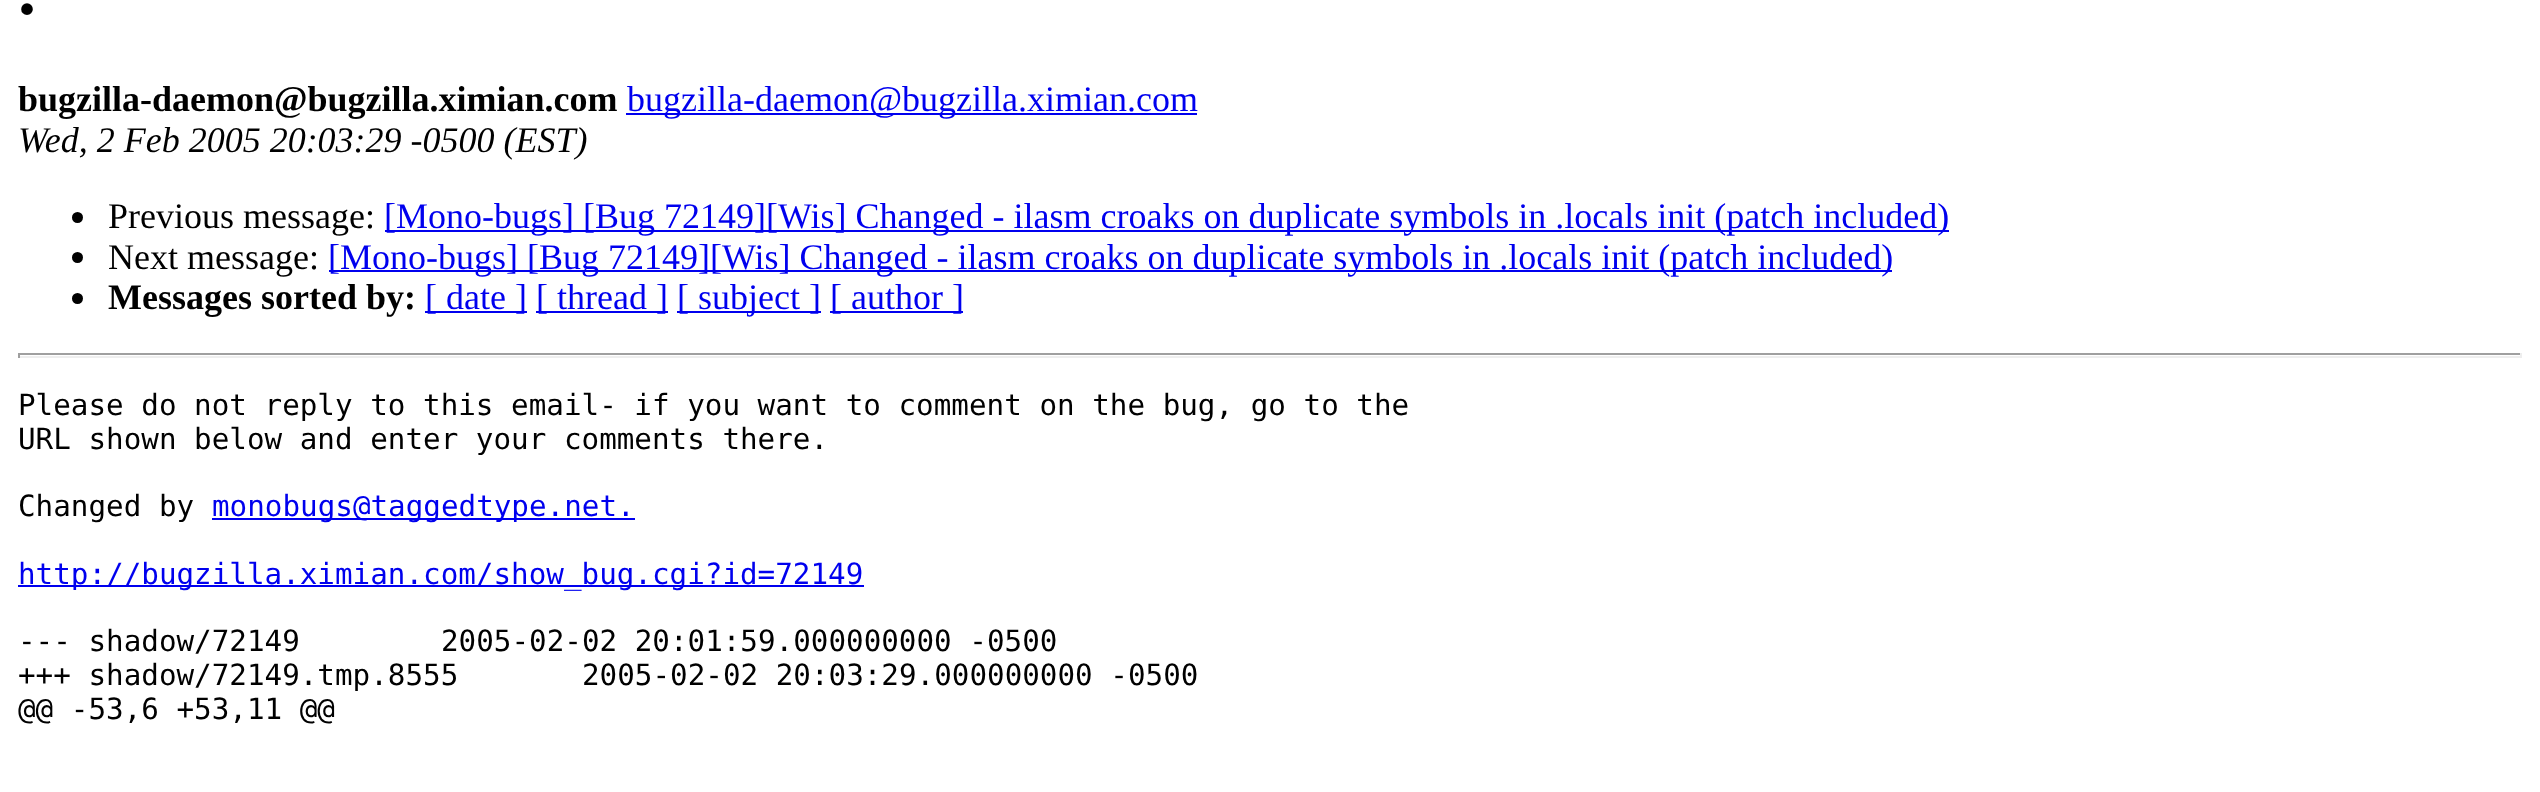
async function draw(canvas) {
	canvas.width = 2540;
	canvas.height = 792;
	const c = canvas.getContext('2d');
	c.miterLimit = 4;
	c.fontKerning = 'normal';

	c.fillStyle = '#fff';
	c.fillRect(0, 0, 2540, 792);
	c.font = 'bold 72px Liberation Serif';
	c.fillStyle = '#000';
	c.fillText('.', 18, 14);
	c.font = 'bold 36px Liberation Serif';
	c.fillText('bugzilla-daemon@bugzilla.ximian.com', 18, 111);
	c.fillStyle = '#00e';
	c.fillRect(626, 113, 571, 2);
	c.font = '36px Liberation Serif';
	c.fillText('bugzilla-daemon@bugzilla.ximian.com', 627, 111);
	c.font = 'italic 36px Liberation Serif';
	c.fillStyle = '#000';
	c.fillText('Wed, 2 Feb 2005 20:03:29 -0500 (EST)', 18, 152);
	c.beginPath();
	c.arc(77.5, 217.5, 5.5, 0, 2 * Math.PI);
	c.fill();
	c.font = '36px Liberation Serif';
	c.fillText('Previous message:', 108, 228);
	c.fillStyle = '#00e';
	c.fillRect(385, 230, 1564, 2);
	c.fillText('[Mono-bugs] [Bug 72149][Wis] Changed - ilasm croaks on duplicate symbols in .locals init (patch included)', 384, 228);
	c.fillStyle = '#000';
	c.beginPath();
	c.arc(77.5, 257.5, 5.5, 0, 2 * Math.PI);
	c.fill();
	c.fillText('Next message:', 108, 269);
	c.fillStyle = '#00e';
	c.fillRect(329, 270, 1563, 2);
	c.fillText('[Mono-bugs] [Bug 72149][Wis] Changed - ilasm croaks on duplicate symbols in .locals init (patch included)', 328, 269);
	c.fillStyle = '#000';
	c.beginPath();
	c.arc(77.5, 298.5, 5.5, 0, 2 * Math.PI);
	c.fill();
	c.font = 'bold 36px Liberation Serif';
	c.fillText('Messages sorted by:', 108, 309);
	c.fillStyle = '#00e';
	c.fillRect(425, 311, 102, 2);
	c.font = '36px Liberation Serif';
	c.fillText('[ date ]', 425, 309);
	c.fillRect(536, 311, 132, 2);
	c.fillText('[ thread ]', 536, 309);
	c.fillRect(677, 311, 144, 2);
	c.fillText('[ subject ]', 677, 309);
	c.fillRect(830, 311, 133, 2);
	c.fillText('[ author ]', 830, 309);
	for (const [x, y, w, h, color] of [
		[18, 353, 2504, 2, '#9f9f9f'],
		[2520, 353, 2, 5, '#eee'],
		[18, 356, 2504, 2, '#eee'],
		[18, 353, 2, 5, '#9f9f9f'],
	]) {
		c.fillStyle = color;
		c.fillRect(x, y, w, h);
	}
	c.font = '29.25px DejaVu Sans Mono';
	c.fillStyle = '#000';
	for (const [text, x, y] of [
		['Please do not reply to this email- if you want to comment on the bug, go to the', 18, 415],
		['URL shown below and enter your comments there.', 18, 449],
		['Changed by', 18, 516],
	]) {
		c.fillText(text, x, y);
	}
	c.fillStyle = '#00e';
	c.fillRect(212, 518, 423, 2);
	c.fillText('monobugs@taggedtype.net.', 212, 516);
	c.fillRect(18, 585, 846, 2);
	c.fillText('http://bugzilla.ximian.com/show_bug.cgi?id=72149', 18, 584);
	c.fillStyle = '#000';
	for (const [text, x, y] of [
		['--- shadow/72149', 18, 651],
		['2005-02-02 20:01:59.000000000 -0500', 441, 651],
		['+++ shadow/72149.tmp.8555', 18, 685],
		['2005-02-02 20:03:29.000000000 -0500', 582, 685],
		['@@ -53,6 +53,11 @@', 18, 719],
	]) {
		c.fillText(text, x, y);
	}
}

draw(document.querySelector('canvas'));
